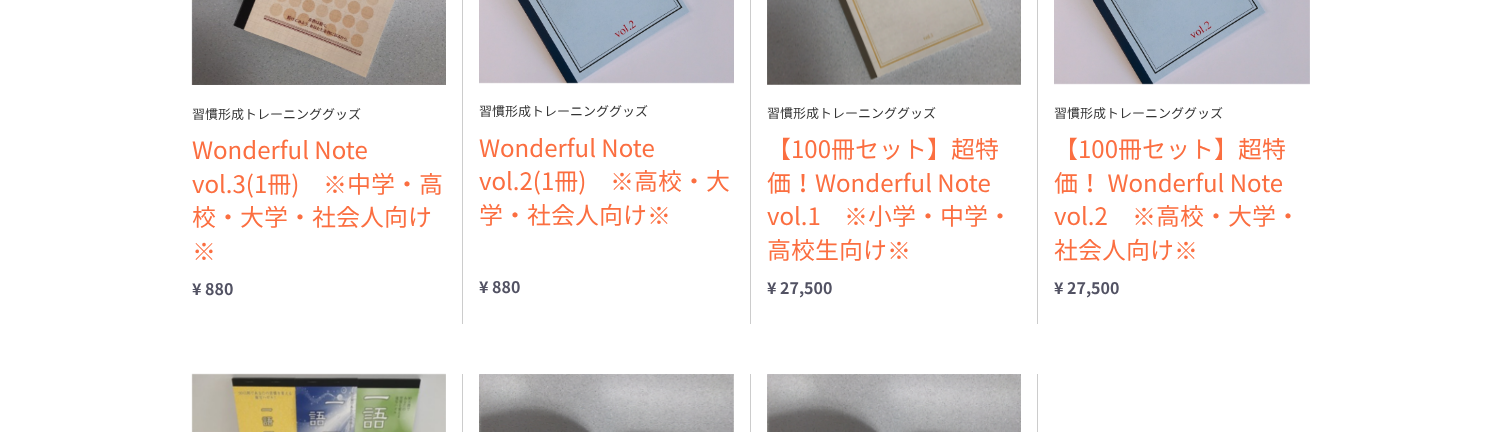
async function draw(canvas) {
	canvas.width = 1501;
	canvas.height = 432;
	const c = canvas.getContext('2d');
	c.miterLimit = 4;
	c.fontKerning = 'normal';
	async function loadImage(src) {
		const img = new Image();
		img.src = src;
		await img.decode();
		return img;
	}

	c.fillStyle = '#fff';
	c.fillRect(0, 0, 1501, 432);
	c.fillStyle = '#ccc';
	c.fillRect(462, 0, 1, 324);
	c.drawImage(await loadImage('img1.png'), 191, 0, 255, 85);
	c.font = '13px Noto Sans JP';
	c.fillStyle = '#333';
	c.fillText('習慣形成トレーニンググッズ', 192, 119);
	c.font = '24px Noto Sans JP';
	c.fillStyle = '#fb6e40';
	c.fillText('Wonderful Note', 192, 159);
	c.fillText('vol.3(1冊)', 192, 193);
	c.font = '500 24px WenQuanYi Zen Hei';
	c.fillText('※', 323, 193);
	c.font = '24px Noto Sans JP';
	c.fillText('中学・高', 347, 193);
	c.fillText('校・大学・社会人向け', 192, 226);
	c.font = '500 24px WenQuanYi Zen Hei';
	c.fillText('※', 192, 260);
	c.font = 'bold 16px Noto Sans JP';
	c.fillStyle = '#525263';
	c.fillText('¥ 880', 192, 295);
	c.fillStyle = '#ccc';
	c.fillRect(750, 0, 1, 324);
	c.drawImage(await loadImage('img2.png'), 479, 0, 255, 84);
	c.font = '13px Noto Sans JP';
	c.fillStyle = '#333';
	c.fillText('習慣形成トレーニンググッズ', 479, 116);
	c.font = '24px Noto Sans JP';
	c.fillStyle = '#fb6e40';
	c.fillText('Wonderful Note', 479, 157);
	c.fillText('vol.2(1冊)', 479, 190);
	c.font = '500 24px WenQuanYi Zen Hei';
	c.fillText('※', 610, 190);
	c.font = '24px Noto Sans JP';
	c.fillText('高校・大', 634, 190);
	c.fillText('学・社会人向け', 479, 224);
	c.font = '500 24px WenQuanYi Zen Hei';
	c.fillText('※', 647, 224);
	c.font = 'bold 16px Noto Sans JP';
	c.fillStyle = '#525263';
	c.fillText('¥ 880', 479, 293);
	c.fillStyle = '#ccc';
	c.fillRect(1037, 0, 1, 324);
	c.drawImage(await loadImage('img3.png'), 767, 0, 254, 85);
	c.font = '13px Noto Sans JP';
	c.fillStyle = '#333';
	c.fillText('習慣形成トレーニンググッズ', 767, 118);
	c.font = '24px Noto Sans JP';
	c.fillStyle = '#fb6e40';
	for (const [text, x, y] of [
		['【100冊セット】超特', 767, 158],
		['価！Wonderful Note', 767, 192],
		['vol.1', 767, 225],
	]) {
		c.fillText(text, x, y);
	}
	c.font = '500 24px WenQuanYi Zen Hei';
	c.fillText('※', 844, 225);
	c.font = '24px Noto Sans JP';
	c.fillText('小学・中学・', 868, 225);
	c.fillText('高校生向け', 767, 259);
	c.font = '500 24px WenQuanYi Zen Hei';
	c.fillText('※', 887, 259);
	c.font = 'bold 16px Noto Sans JP';
	c.fillStyle = '#525263';
	c.fillText('¥ 27,500', 767, 294);
	c.drawImage(await loadImage('img4.png'), 1054, 0, 256, 85);
	c.font = '13px Noto Sans JP';
	c.fillStyle = '#333';
	c.fillText('習慣形成トレーニンググッズ', 1054, 118);
	c.font = '24px Noto Sans JP';
	c.fillStyle = '#fb6e40';
	for (const [text, x, y] of [
		['【100冊セット】超特', 1054, 158],
		['価！ Wonderful Note', 1054, 192],
		['vol.2', 1054, 225],
	]) {
		c.fillText(text, x, y);
	}
	c.font = '500 24px WenQuanYi Zen Hei';
	c.fillText('※', 1132, 225);
	c.font = '24px Noto Sans JP';
	c.fillText('高校・大学・', 1156, 225);
	c.fillText('社会人向け', 1054, 259);
	c.font = '500 24px WenQuanYi Zen Hei';
	c.fillText('※', 1174, 259);
	c.font = 'bold 16px Noto Sans JP';
	c.fillStyle = '#525263';
	c.fillText('¥ 27,500', 1054, 294);
	c.fillStyle = '#ccc';
	c.fillRect(462, 374, 1, 58);
	c.drawImage(await loadImage('img5.png'), 191, 373, 255, 59);
	c.fillRect(750, 374, 1, 58);
	c.drawImage(await loadImage('img6.png'), 479, 374, 255, 58);
	c.fillRect(1037, 374, 1, 58);
	c.drawImage(await loadImage('img7.png'), 767, 374, 254, 58);
}

draw(document.querySelector('canvas'));
